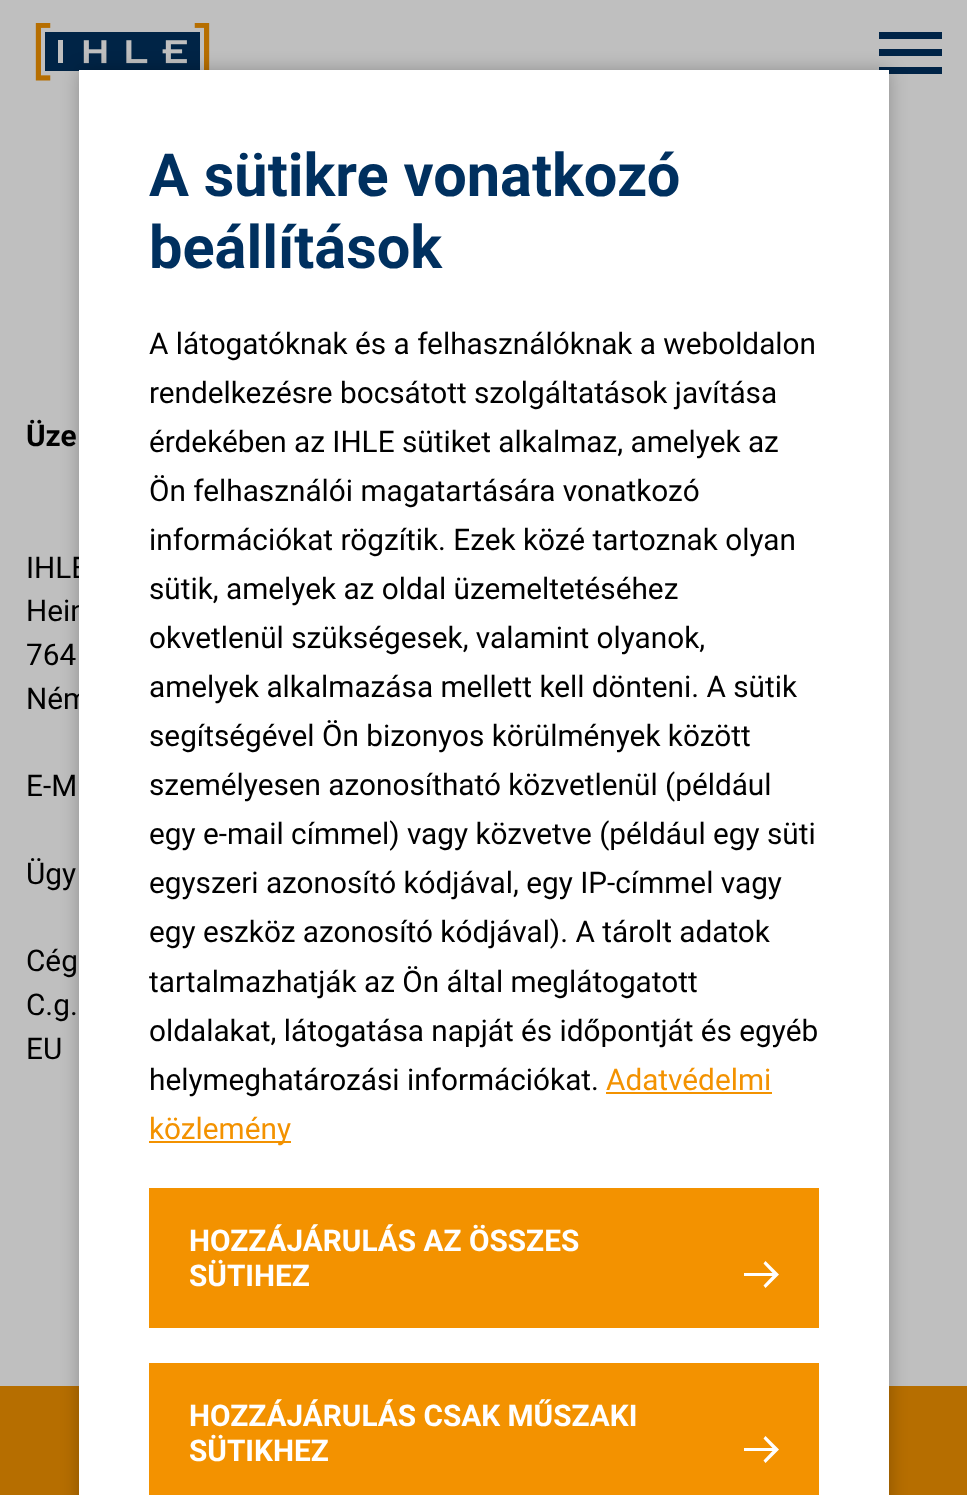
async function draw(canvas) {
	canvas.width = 967;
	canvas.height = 1495;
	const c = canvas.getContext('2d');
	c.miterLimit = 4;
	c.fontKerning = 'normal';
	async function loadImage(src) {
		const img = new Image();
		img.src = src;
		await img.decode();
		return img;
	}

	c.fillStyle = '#bfbfbf';
	c.fillRect(0, 0, 967, 1495);
	c.drawImage(await loadImage('img1.png'), 35, 23, 175, 58);
	for (const [x, y, w, h, color] of [
		[879, 32, 63, 7, '#002447'],
		[879, 49, 63, 7, '#002447'],
		[879, 67, 63, 7, '#002447'],
	]) {
		c.fillStyle = color;
		c.fillRect(x, y, w, h);
	}
	c.font = 'bold 29.75px Roboto';
	c.fillStyle = '#000';
	c.fillText('Üze', 26, 446);
	c.font = '29.75px Roboto';
	for (const [text, x, y] of [
		['IHLE', 26, 578],
		['Hein', 26, 621],
		['764', 26, 665],
		['Ném', 26, 709],
		['E-M', 26, 796],
		['Ügy', 26, 884],
		['Cég', 26, 971],
		['C.g.', 26, 1015],
		['EU', 26, 1059],
	]) {
		c.fillText(text, x, y);
	}
	c.fillStyle = '#b66e00';
	c.fillRect(0, 1386, 967, 109);
	c.fillStyle = '#00000040';
	c.filter = 'blur(9px)';
	c.beginPath();
	c.rect(79, 70, 810, 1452);
	c.fill();
	c.filter = 'none';
	c.fillStyle = '#fff';
	c.fillRect(79, 70, 810, 1425);
	c.font = 'bold 59.5px Roboto';
	c.fillStyle = '#00305f';
	c.fillText('A sütikre vonatkozó', 149, 196);
	c.fillText('beállítások', 149, 268);
	c.font = '29.75px Roboto';
	c.fillStyle = '#000';
	for (const [text, x, y] of [
		['A látogatóknak és a felhasználóknak a weboldalon', 149, 354],
		['rendelkezésre bocsátott szolgáltatások javítása', 149, 403],
		['érdekében az IHLE sütiket alkalmaz, amelyek az', 149, 452],
		['Ön felhasználói magatartására vonatkozó', 149, 501],
		['információkat rögzítik. Ezek közé tartoznak olyan', 149, 550],
		['sütik, amelyek az oldal üzemeltetéséhez', 149, 599],
		['okvetlenül szükségesek, valamint olyanok,', 149, 648],
		['amelyek alkalmazása mellett kell dönteni. A sütik', 149, 697],
		['segítségével Ön bizonyos körülmények között', 149, 746],
		['személyesen azonosítható közvetlenül (például', 149, 795],
		['egy e-mail címmel) vagy közvetve (például egy süti', 149, 844],
		['egyszeri azonosító kódjával, egy IP-címmel vagy', 149, 893],
		['egy eszköz azonosító kódjával). A tárolt adatok', 149, 942],
		['tartalmazhatják az Ön által meglátogatott', 149, 992],
		['oldalakat, látogatása napját és időpontját és egyéb', 149, 1041],
		['helymeghatározási információkat.', 149, 1090],
	]) {
		c.fillText(text, x, y);
	}
	c.fillStyle = '#f39200';
	c.fillText('Adatvédelmi', 606, 1090);
	c.fillRect(606, 1092, 166, 2);
	c.fillRect(149, 1141, 142, 2);
	c.fillText('közlemény', 149, 1139);
	c.fillRect(149, 1188, 670, 140);
	c.font = 'bold 29.75px Roboto';
	c.fillStyle = '#fff';
	c.fillText('HOZZÁJÁRULÁS AZ ÖSSZES', 189, 1251);
	c.fillText('SÜTIHEZ', 189, 1286);
	c.beginPath();
	c.moveTo(765.5, 1261);
	c.lineTo(763.5, 1263.5);
	c.lineTo(772.5, 1273);
	c.lineTo(744, 1273);
	c.lineTo(744, 1276);
	c.lineTo(772.5, 1276);
	c.lineTo(763.5, 1285.5);
	c.lineTo(765.5, 1288);
	c.lineTo(779, 1274.5);
	c.closePath();
	c.fill();
	c.fillStyle = '#f39200';
	c.fillRect(149, 1363, 670, 132);
	c.fillStyle = '#fff';
	c.fillText('HOZZÁJÁRULÁS CSAK MŰSZAKI', 189, 1426);
	c.fillText('SÜTIKHEZ', 189, 1461);
	c.beginPath();
	c.moveTo(765.5, 1436);
	c.lineTo(763.5, 1438.5);
	c.lineTo(772.5, 1448);
	c.lineTo(744, 1448);
	c.lineTo(744, 1451);
	c.lineTo(772.5, 1451);
	c.lineTo(763.5, 1460.5);
	c.lineTo(765.5, 1463);
	c.lineTo(779, 1449.5);
	c.closePath();
	c.fill();
}

draw(document.querySelector('canvas'));
